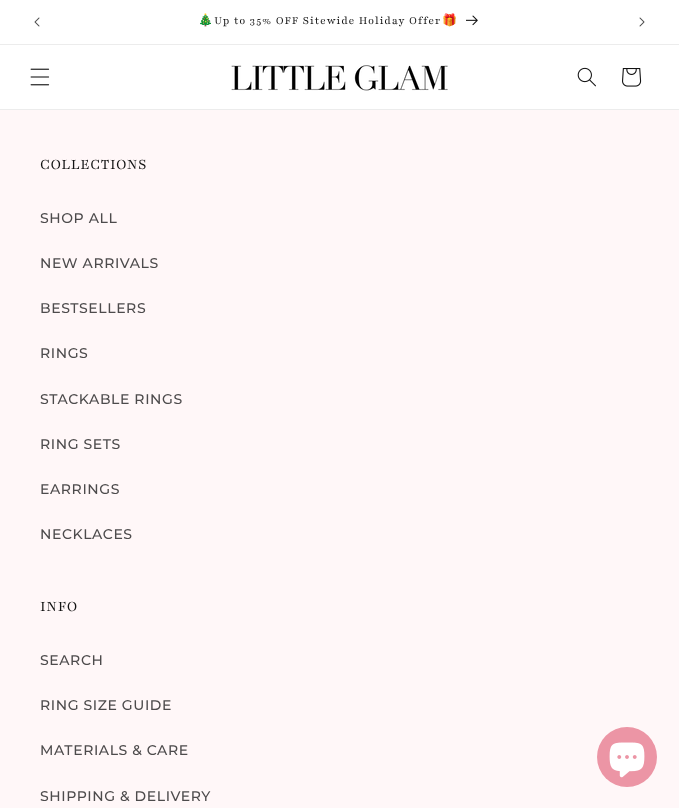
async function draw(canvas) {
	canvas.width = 679;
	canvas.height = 808;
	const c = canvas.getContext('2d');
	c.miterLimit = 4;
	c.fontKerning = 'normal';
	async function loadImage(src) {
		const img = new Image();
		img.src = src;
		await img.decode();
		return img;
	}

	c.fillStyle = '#fff';
	c.fillRect(0, 0, 679, 808);
	c.fillStyle = '#ececec';
	c.fillRect(0, 44, 679, 1);
	c.drawImage(await loadImage('img1.png'), 34, 17, 6, 10);
	c.letterSpacing = '1px';
	c.font = '12px Noto Color Emoji';
	c.fillStyle = '#121212';
	c.fillText('🎄', 198, 24);
	c.font = '12px "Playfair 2"';
	c.fillText('Up to 35% OFF Sitewide Holiday Offer', 214, 24);
	c.font = '12px Noto Color Emoji';
	c.fillText('🎁', 442, 24);
	c.drawImage(await loadImage('img2.png'), 466, 15, 12, 11);
	c.drawImage(await loadImage('img3.png'), 639, 17, 6, 10);
	c.fillStyle = '#ececec';
	c.fillRect(0, 109, 679, 1);
	c.drawImage(await loadImage('img4.png'), 30, 68, 20, 18);
	c.drawImage(await loadImage('img5.png'), 231, 65, 217, 26);
	c.drawImage(await loadImage('img6.png'), 577, 67, 19, 20);
	c.drawImage(await loadImage('img7.png'), 622, 68, 20, 19);
	c.fillStyle = '#fff7f8';
	c.fillRect(0, 110, 679, 698);
	c.letterSpacing = '0.6px';
	c.font = '16px Playfair';
	c.fillStyle = '#121212';
	c.fillText('COLLECTIONS', 40, 169);
	c.font = '500 14px Montserrat';
	c.fillStyle = '#4d4b4c';
	for (const [text, x, y] of [
		['SHOP ALL', 40, 223],
		['NEW ARRIVALS', 40, 268],
		['BESTSELLERS', 40, 313],
		['RINGS', 40, 358],
		['STACKABLE RINGS', 40, 404],
		['RING SETS', 40, 449],
		['EARRINGS', 40, 494],
		['NECKLACES', 40, 539],
	]) {
		c.fillText(text, x, y);
	}
	c.font = '16px Playfair';
	c.fillStyle = '#121212';
	c.fillText('INFO', 40, 611);
	c.font = '500 14px Montserrat';
	c.fillStyle = '#4d4b4c';
	for (const [text, x, y] of [
		['SEARCH', 40, 665],
		['RING SIZE GUIDE', 40, 710],
		['MATERIALS & CARE', 40, 755],
		['SHIPPING & DELIVERY', 40, 801],
	]) {
		c.fillText(text, x, y);
	}
	c.fillStyle = '#ec95a5';
	c.beginPath();
	c.arc(627, 757, 30, 0, 2 * Math.PI);
	c.fill();
	c.drawImage(await loadImage('img8.png'), 609, 742, 36, 36);
}

draw(document.querySelector('canvas'));
